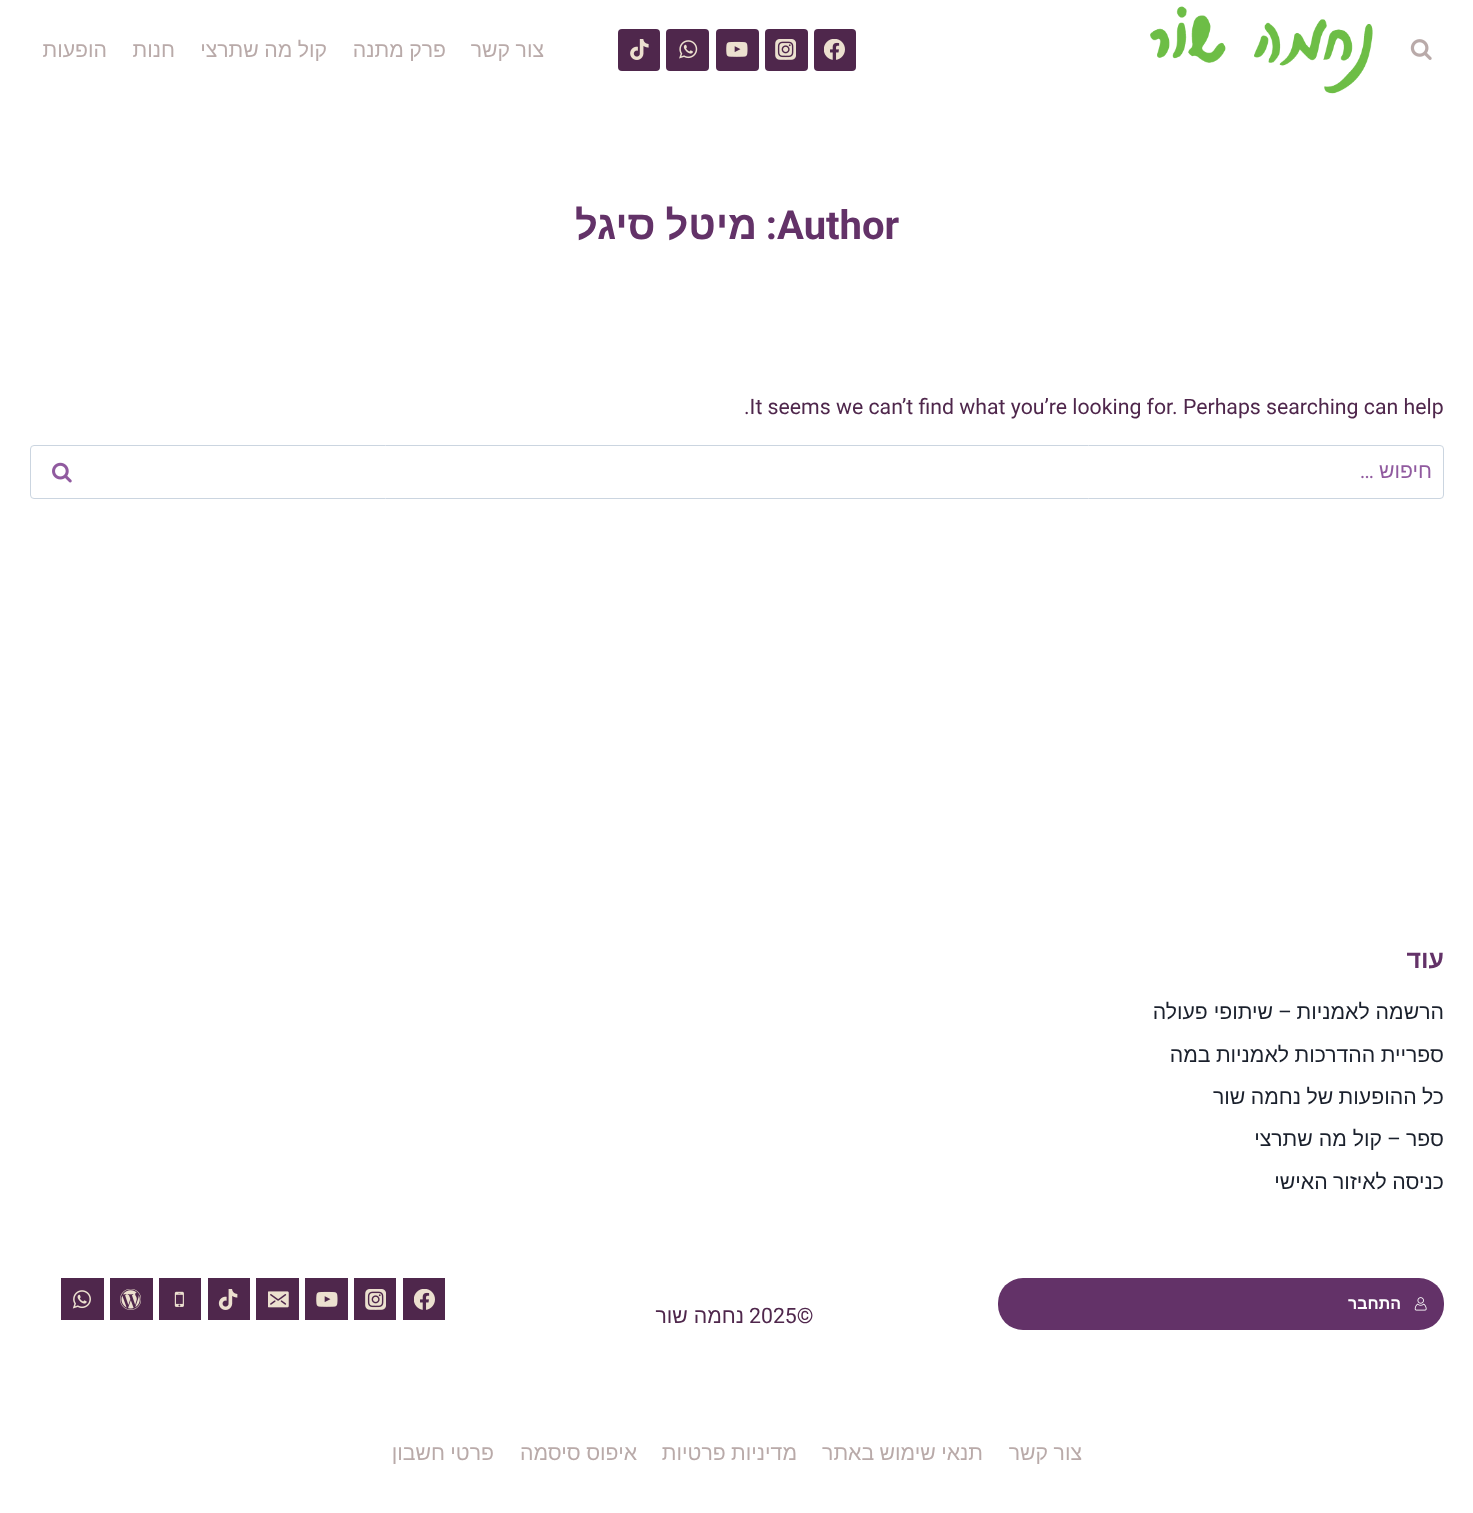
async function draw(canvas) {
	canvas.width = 1473;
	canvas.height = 1513;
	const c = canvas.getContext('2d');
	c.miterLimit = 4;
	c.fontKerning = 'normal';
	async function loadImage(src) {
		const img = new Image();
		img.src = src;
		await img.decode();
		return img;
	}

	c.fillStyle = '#fff';
	c.fillRect(0, 0, 1473, 1513);
	c.drawImage(await loadImage('img1.png'), 1410, 39, 22, 21);
	c.drawImage(await loadImage('img2.png'), 1150, 6, 223, 88);
	c.fillStyle = '#4f274c';
	c.beginPath();
	c.roundRect(814, 29, 42, 42, 4);
	c.fill();
	c.drawImage(await loadImage('img3.png'), 824, 39, 21, 21);
	c.beginPath();
	c.roundRect(765, 29, 43, 42, 4);
	c.fill();
	c.drawImage(await loadImage('img4.png'), 775, 39, 21, 21);
	c.beginPath();
	c.roundRect(716, 29, 43, 42, 4);
	c.fill();
	c.drawImage(await loadImage('img5.png'), 726, 41, 22, 16);
	c.beginPath();
	c.roundRect(666, 29, 43, 42, 4);
	c.fill();
	c.drawImage(await loadImage('img6.png'), 679, 40, 19, 19);
	c.beginPath();
	c.roundRect(618, 29, 42, 42, 4);
	c.fill();
	c.drawImage(await loadImage('img7.png'), 630, 39, 19, 21);
	c.wordSpacing = '-0.5px';
	c.direction = 'rtl';
	c.font = '21.25px Liberation Sans';
	c.fillStyle = '#b9aaa9';
	for (const [text, x, y] of [
		['צור קשר', 544, 57],
		['פרק מתנה', 446, 57],
		['קול מה שתרצי', 327, 57],
	]) {
		c.fillText(text, x, y);
	}
	c.wordSpacing = '0px';
	c.fillText('חנות', 175, 57);
	c.fillText('הופעות', 107, 57);
	c.direction = 'ltr';
	c.font = 'bold 40px Roboto';
	c.fillStyle = '#633268';
	c.fillText('Author', 777, 239);
	c.direction = 'rtl';
	c.fillText(':', 777, 239);
	c.wordSpacing = '-1px';
	c.font = 'bold 40px Liberation Sans';
	c.fillText('מיטל סיגל', 757, 239);
	c.wordSpacing = '0px';
	c.direction = 'ltr';
	c.font = '21.25px Roboto';
	c.fillStyle = '#4f274c';
	c.fillText('.It seems we can’t find what you’re looking for. Perhaps searching can help', 744, 414);
	c.beginPath();
	c.roundRect(30.5, 445.5, 1413, 53, 3.5);
	c.strokeStyle = '#cbd5e0';
	c.stroke();
	c.direction = 'rtl';
	c.font = '21.25px Liberation Sans';
	c.fillStyle = '#905a9f';
	c.fillText('חיפוש', 1432, 478);
	c.font = '21.25px Roboto';
	c.fillText('…', 1374, 478);
	c.drawImage(await loadImage('img8.png'), 52, 462, 20, 21);
	c.font = 'bold 25px Liberation Sans';
	c.fillStyle = '#633268';
	c.fillText('עוד', 1444, 968);
	c.font = '21.25px Liberation Sans';
	c.fillStyle = '#1a202c';
	c.fillText('הרשמה לאמניות', 1444, 1019);
	c.font = '21.25px Roboto';
	c.fillText('–', 1292, 1019);
	c.font = '21.25px Liberation Sans';
	c.fillText('שיתופי פעולה', 1273, 1019);
	c.wordSpacing = '-0.5px';
	c.fillText('ספריית ההדרכות לאמניות במה', 1444, 1062);
	c.fillText('כל ההופעות של נחמה שור', 1444, 1104);
	c.wordSpacing = '0px';
	c.fillText('ספר', 1444, 1146);
	c.font = '21.25px Roboto';
	c.fillText('–', 1401, 1146);
	c.font = '21.25px Liberation Sans';
	c.fillText('קול מה שתרצי', 1382, 1146);
	c.wordSpacing = '-0.5px';
	c.fillText('כניסה לאיזור האישי', 1444, 1189);
	c.fillStyle = '#633268';
	c.beginPath();
	c.roundRect(998, 1278, 446, 52, 25);
	c.fill();
	c.drawImage(await loadImage('img9.png'), 1414, 1297, 13, 14);
	c.wordSpacing = '0px';
	c.font = 'bold 16px Liberation Sans';
	c.fillStyle = '#fff';
	c.fillText('התחבר', 1401, 1309);
	c.fillStyle = '#4f274c';
	c.fillRect(403, 1278, 42, 42);
	c.drawImage(await loadImage('img3.png'), 414, 1289, 21, 21);
	c.fillRect(354, 1278, 42, 42);
	c.drawImage(await loadImage('img4.png'), 365, 1289, 21, 21);
	c.fillRect(305, 1278, 43, 42);
	c.drawImage(await loadImage('img5.png'), 316, 1291, 22, 16);
	c.fillRect(256, 1278, 43, 42);
	c.drawImage(await loadImage('img10.png'), 268, 1291, 21, 17);
	c.fillRect(208, 1278, 42, 42);
	c.drawImage(await loadImage('img11.png'), 218, 1289, 20, 21);
	c.fillRect(159, 1278, 42, 42);
	c.drawImage(await loadImage('img12.png'), 174, 1291, 10, 16);
	c.fillRect(110, 1278, 43, 42);
	c.drawImage(await loadImage('img13.png'), 120, 1289, 21, 21);
	c.fillRect(61, 1278, 43, 42);
	c.drawImage(await loadImage('img14.png'), 72, 1290, 19, 19);
	c.direction = 'ltr';
	c.font = '21.25px Roboto';
	c.fillText('2025©', 749, 1323);
	c.direction = 'rtl';
	c.font = '21.25px Liberation Sans';
	c.fillText('נחמה שור', 744, 1323);
	c.wordSpacing = '-0.5px';
	c.fillStyle = '#b9aaa9';
	for (const [text, x, y] of [
		['צור קשר', 1082, 1460],
		['תנאי שימוש באתר', 983, 1460],
		['מדיניות פרטיות', 797, 1460],
		['איפוס סיסמה', 637, 1460],
		['פרטי חשבון', 494, 1460],
	]) {
		c.fillText(text, x, y);
	}
}

draw(document.querySelector('canvas'));
